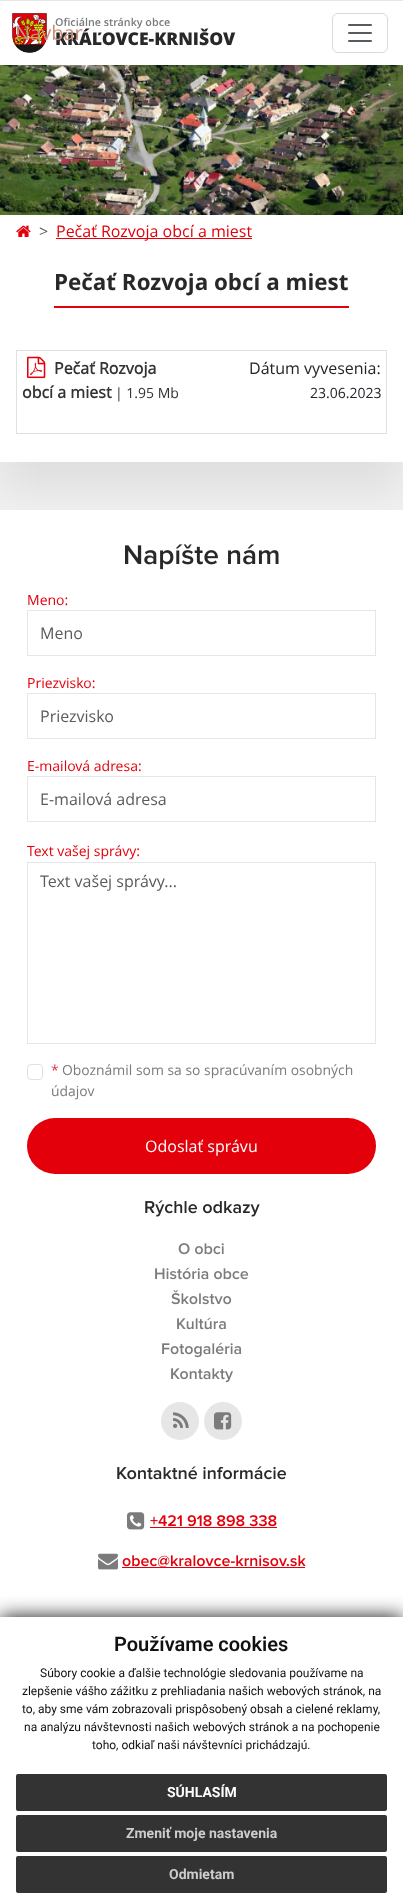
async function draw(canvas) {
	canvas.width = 403;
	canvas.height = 1902;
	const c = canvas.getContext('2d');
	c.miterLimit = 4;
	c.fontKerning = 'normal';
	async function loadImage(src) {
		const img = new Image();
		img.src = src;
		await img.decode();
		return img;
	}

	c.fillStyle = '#f1f1f1';
	c.fillRect(0, 0, 403, 1902);
	c.fillStyle = '#fff';
	c.fillRect(0, 1, 403, 64);
	c.fillStyle = '#e6e6e6';
	c.fillRect(0, 0, 403, 1);
	c.drawImage(await loadImage('img2.png'), 12, 13, 35, 40);
	c.font = '600 10.75px Open Sans';
	c.fillStyle = '#7b7b7b';
	c.fillText('Oficiálne stránky obce', 55, 26);
	c.font = '800 17.6px Open Sans';
	c.fillStyle = '#282828';
	c.fillText('KRÁĽOVCE-KRNIŠOV', 55, 45);
	c.font = '20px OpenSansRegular';
	c.fillStyle = '#ca927c';
	c.fillText('Navbar', 15, 40);
	c.beginPath();
	c.roundRect(332.5, 13.5, 55, 39, 5.5);
	c.strokeStyle = '#d9d9d9';
	c.stroke();
	c.drawImage(await loadImage('img1.png'), 348, 24, 24, 18);
	c.drawImage(await loadImage('img3.png'), 0, 65, 403, 150);
	c.fillStyle = '#00000012';
	c.filter = 'blur(20px)';
	c.beginPath();
	c.rect(0, 245, 403, 247);
	c.fill();
	c.filter = 'none';
	c.fillStyle = '#fff';
	c.fillRect(0, 215, 403, 247);
	c.drawImage(await loadImage('img4.png'), 16, 225, 15, 12);
	c.font = '16px OpenSansRegular';
	c.fillStyle = '#595c5f';
	c.fillText('>', 39, 237);
	c.fillStyle = '#e3000b';
	c.fillRect(56, 238, 196, 1);
	c.fillText('Pečať Rozvoja obcí a miest', 56, 237);
	c.fillRect(54, 306, 295, 2);
	c.font = 'bold 22.4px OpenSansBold';
	c.fillStyle = '#282828';
	c.fillText('Pečať Rozvoja obcí a miest', 54, 290);
	c.strokeStyle = '#dee2e6';
	c.strokeRect(16.5, 350.5, 370, 83);
	c.drawImage(await loadImage('img5.png'), 27, 356, 19, 23);
	c.font = 'bold 16px OpenSansRegular';
	c.fillStyle = '#333';
	c.fillText('Pečať Rozvoja', 54, 374);
	c.fillText('obcí a miest', 22, 398);
	c.font = '14px OpenSansRegular';
	c.fillText('| 1.95 Mb', 115, 398);
	c.font = '16px OpenSansRegular';
	c.fillStyle = '#212529';
	c.fillText('Dátum vyvesenia:', 249, 374);
	c.font = '14px OpenSansRegular';
	c.fillText('23.06.2023', 310, 398);
	c.fillStyle = '#fff';
	c.fillRect(0, 510, 403, 1107);
	c.drawImage(await loadImage('img6.png'), 125, 544, 154, 26);
	c.fillStyle = '#e3000b';
	c.fillText('Meno:', 27, 605);
	c.strokeStyle = '#e6e6e6';
	c.strokeRect(27.5, 610.5, 348, 45);
	c.font = '16px OpenSansRegular';
	c.fillStyle = '#595c5f';
	c.fillText('Meno', 40, 639);
	c.font = '14px OpenSansRegular';
	c.fillStyle = '#e3000b';
	c.fillText('Priezvisko:', 27, 688);
	c.strokeRect(27.5, 693.5, 348, 45);
	c.font = '16px OpenSansRegular';
	c.fillStyle = '#595c5f';
	c.fillText('Priezvisko', 40, 722);
	c.font = '14px OpenSansRegular';
	c.fillStyle = '#e3000b';
	c.fillText('E-mailová adresa:', 27, 771);
	c.strokeRect(27.5, 776.5, 348, 45);
	c.font = '16px OpenSansRegular';
	c.fillStyle = '#595c5f';
	c.fillText('E-mailová adresa', 40, 805);
	c.font = '14px OpenSansRegular';
	c.fillStyle = '#e3000b';
	c.fillText('Text vašej správy:', 27, 856);
	c.strokeRect(27.5, 862.5, 348, 181);
	c.font = '16px OpenSansRegular';
	c.fillStyle = '#595c5f';
	c.fillText('Text vašej správy...', 40, 887);
	c.beginPath();
	c.roundRect(27.5, 1064.5, 15, 15, 3.5);
	c.strokeStyle = '#dee2e6';
	c.stroke();
	c.font = '13.9px OpenSansRegular';
	c.fillStyle = '#dc3545';
	c.fillText('*', 51, 1075);
	c.fillStyle = '#7b7b7b';
	c.fillText('Oboznámil som sa so spracúvaním osobných', 62, 1075);
	c.fillText('údajov', 51, 1096);
	c.fillStyle = '#e3000b';
	c.beginPath();
	c.roundRect(27, 1118, 349, 56, 28);
	c.fill();
	c.font = '16px OpenSansRegular';
	c.fillStyle = '#fff';
	c.fillText('Odoslať správu', 145, 1152);
	c.drawImage(await loadImage('img7.png'), 145, 1200, 115, 17);
	c.drawImage(await loadImage('img8.png'), 178, 1243, 46, 12);
	c.drawImage(await loadImage('img9.png'), 155, 1267, 94, 13);
	c.drawImage(await loadImage('img10.png'), 171, 1290, 61, 15);
	c.drawImage(await loadImage('img11.png'), 177, 1317, 49, 13);
	c.drawImage(await loadImage('img12.png'), 162, 1342, 80, 16);
	c.drawImage(await loadImage('img13.png'), 171, 1368, 62, 15);
	c.fillStyle = '#e6e6e6';
	c.beginPath();
	c.arc(180, 1421, 19, 0, 2 * Math.PI);
	c.fill();
	c.drawImage(await loadImage('img14.png'), 173, 1412, 16, 16);
	c.beginPath();
	c.arc(223, 1421, 19, 0, 2 * Math.PI);
	c.fill();
	c.drawImage(await loadImage('img15.png'), 214, 1412, 18, 18);
	c.drawImage(await loadImage('img16.png'), 117, 1466, 169, 14);
	c.drawImage(await loadImage('img17.png'), 127, 1512, 18, 18);
	c.drawImage(await loadImage('img18.png'), 150, 1515, 127, 12);
	c.fillStyle = '#e3000b';
	c.fillRect(150, 1527, 127, 1);
	c.drawImage(await loadImage('img19.png'), 98, 1553, 20, 17);
	c.drawImage(await loadImage('img20.png'), 122, 1555, 184, 12);
	c.fillRect(122, 1567, 183, 1);
	c.fillStyle = '#111';
	c.filter = 'blur(10px)';
	c.beginPath();
	c.rect(0, 1617, 403, 285);
	c.fill();
	c.filter = 'none';
	c.fillStyle = '#fff';
	c.fillRect(0, 1617, 403, 285);
	c.font = '600 20px Roboto';
	c.fillStyle = '#111';
	c.fillText('Používame cookies', 114, 1651);
	c.font = '12px Roboto';
	for (const [text, x, y] of [
		['Súbory cookie a ďalšie technológie sledovania používame na', 40, 1677],
		['zlepšenie vášho zážitku z prehliadania našich webových stránok, na', 22, 1695],
		['to, aby sme vám zobrazovali prispôsobený obsah a cielené reklamy,', 22, 1713],
		['na analýzu návštevnosti našich webových stránok a na pochopenie', 24, 1731],
		['toho, odkiaľ naši návštevníci prichádzajú.', 92, 1749],
	]) {
		c.fillText(text, x, y);
	}
	c.fillStyle = '#333';
	c.beginPath();
	c.roundRect(16, 1774, 371, 37, 2);
	c.fill();
	c.font = 'bold 14px Roboto';
	c.fillStyle = '#fff';
	c.fillText('SÚHLASÍM', 167, 1797);
	c.fillStyle = '#333';
	c.beginPath();
	c.roundRect(16, 1815, 371, 37, 2);
	c.fill();
	c.fillStyle = '#ccc';
	c.fillText('Zmeniť moje nastavenia', 126, 1838);
	c.fillStyle = '#333';
	c.beginPath();
	c.roundRect(16, 1856, 371, 37, 2);
	c.fill();
	c.fillStyle = '#ccc';
	c.fillText('Odmietam', 169, 1879);
}

draw(document.querySelector('canvas'));
